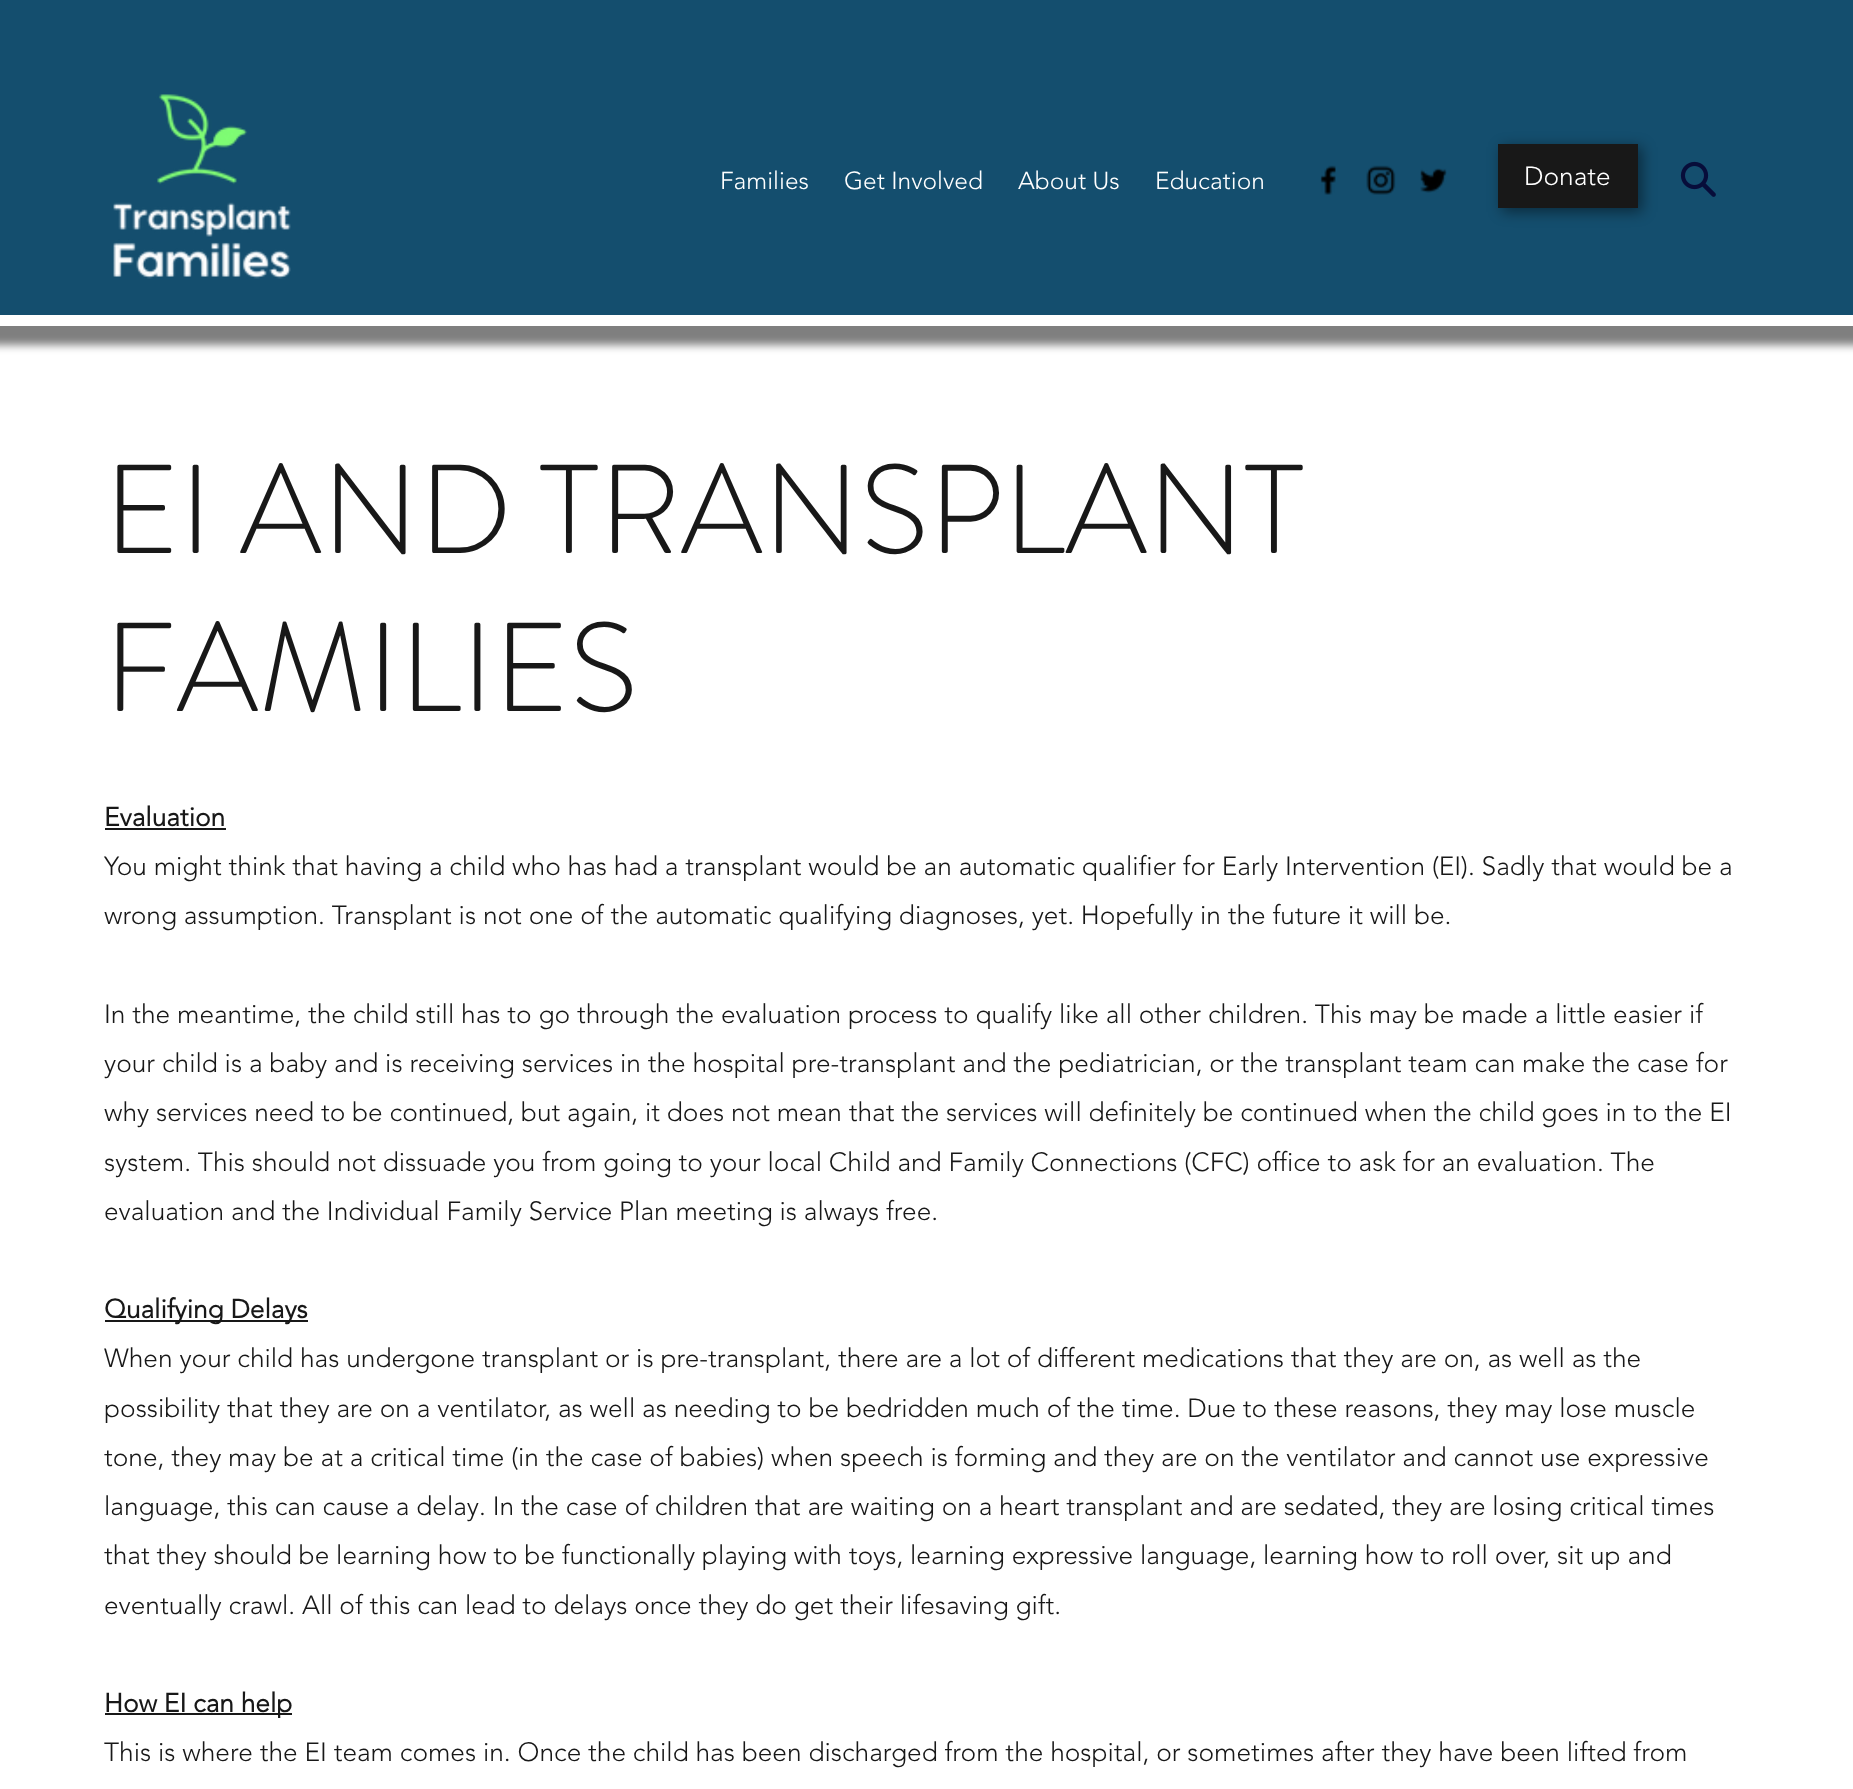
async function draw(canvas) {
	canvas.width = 1853;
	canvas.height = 1789;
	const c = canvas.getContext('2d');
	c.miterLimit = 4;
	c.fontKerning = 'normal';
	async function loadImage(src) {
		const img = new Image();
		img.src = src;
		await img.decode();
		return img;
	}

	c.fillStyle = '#fff';
	c.fillRect(0, 0, 1853, 1789);
	c.fillStyle = '#00000080';
	c.filter = 'blur(4.5px)';
	c.beginPath();
	c.rect(-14, -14, 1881, 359);
	c.fill();
	c.filter = 'none';
	c.fillStyle = '#fff';
	c.fillRect(0, 315, 1853, 11);
	c.fillStyle = '#144e6e';
	c.fillRect(0, 0, 1853, 315);
	c.drawImage(await loadImage('img1.png'), 113, 94, 178, 185);
	c.font = '300 24.5px "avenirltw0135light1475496"';
	c.fillStyle = '#fff';
	for (const [text, x, y] of [
		['Families', 720, 189],
		['Get Involved', 844, 189],
		['About Us', 1018, 189],
		['Education', 1155, 189],
	]) {
		c.fillText(text, x, y);
	}
	c.drawImage(await loadImage('img2.png'), 1320, 165, 16, 30);
	c.drawImage(await loadImage('img3.png'), 1366, 165, 30, 30);
	c.drawImage(await loadImage('img4.png'), 1420, 168, 27, 25);
	c.fillStyle = '#00000073';
	c.filter = 'blur(7px)';
	c.beginPath();
	c.rect(1502, 147, 140, 65);
	c.fill();
	c.filter = 'none';
	c.fillStyle = '#181818';
	c.fillRect(1498, 144, 140, 64);
	c.font = '300 26.25px "avenirltw0135light1475496"';
	c.fillStyle = '#fff';
	c.fillText('Donate', 1524, 185);
	c.drawImage(await loadImage('img5.png'), 1680, 161, 36, 36);
	c.font = '300 126px "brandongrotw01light"';
	c.fillStyle = '#181818';
	c.fillText('EI AND TRANSPLANT', 104, 553);
	c.fillText('FAMILIES', 104, 711);
	c.font = 'bold 26.25px "avenirltw0135light1475496"';
	c.fillText('Evaluation', 104, 826);
	c.fillRect(105, 828, 121, 2);
	c.font = '300 26.25px "avenirltw0135light1475496"';
	for (const [text, x, y] of [
		['You might think that having a child who has had a transplant would be an automatic qualifier for Early Intervention (EI). Sadly that would be a', 104, 875],
		['wrong assumption. Transplant is not one of the automatic qualifying diagnoses, yet. Hopefully in the future it will be.', 104, 924],
		['In the meantime, the child still has to go through the evaluation process to qualify like all other children. This may be made a little easier if', 104, 1023],
		['your child is a baby and is receiving services in the hospital pre-transplant and the pediatrician, or the transplant team can make the case for', 104, 1072],
		['why services need to be continued, but again, it does not mean that the services will definitely be continued when the child goes in to the EI', 104, 1121],
		['system. This should not dissuade you from going to your local Child and Family Connections (CFC) office to ask for an evaluation. The', 104, 1171],
		['evaluation and the Individual Family Service Plan meeting is always free.', 104, 1220],
	]) {
		c.fillText(text, x, y);
	}
	c.fillRect(105, 1320, 203, 2);
	c.font = 'bold 26.25px "avenirltw0135light1475496"';
	c.fillText('Qualifying Delays', 104, 1318);
	c.font = '300 26.25px "avenirltw0135light1475496"';
	for (const [text, x, y] of [
		['When your child has undergone transplant or is pre-transplant, there are a lot of different medications that they are on, as well as the', 104, 1367],
		['possibility that they are on a ventilator, as well as needing to be bedridden much of the time. Due to these reasons, they may lose muscle', 104, 1417],
		['tone, they may be at a critical time (in the case of babies) when speech is forming and they are on the ventilator and cannot use expressive', 104, 1466],
		['language, this can cause a delay. In the case of children that are waiting on a heart transplant and are sedated, they are losing critical times', 104, 1515],
		['that they should be learning how to be functionally playing with toys, learning expressive language, learning how to roll over, sit up and', 104, 1564],
		['eventually crawl. All of this can lead to delays once they do get their lifesaving gift.', 104, 1614],
	]) {
		c.fillText(text, x, y);
	}
	c.fillRect(105, 1713, 187, 2);
	c.font = 'bold 26.25px "avenirltw0135light1475496"';
	c.fillText('How EI can help', 104, 1712);
	c.font = '300 26.25px "avenirltw0135light1475496"';
	c.fillText('This is where the EI team comes in. Once the child has been discharged from the hospital, or sometimes after they have been lifted from', 104, 1761);
}

draw(document.querySelector('canvas'));
